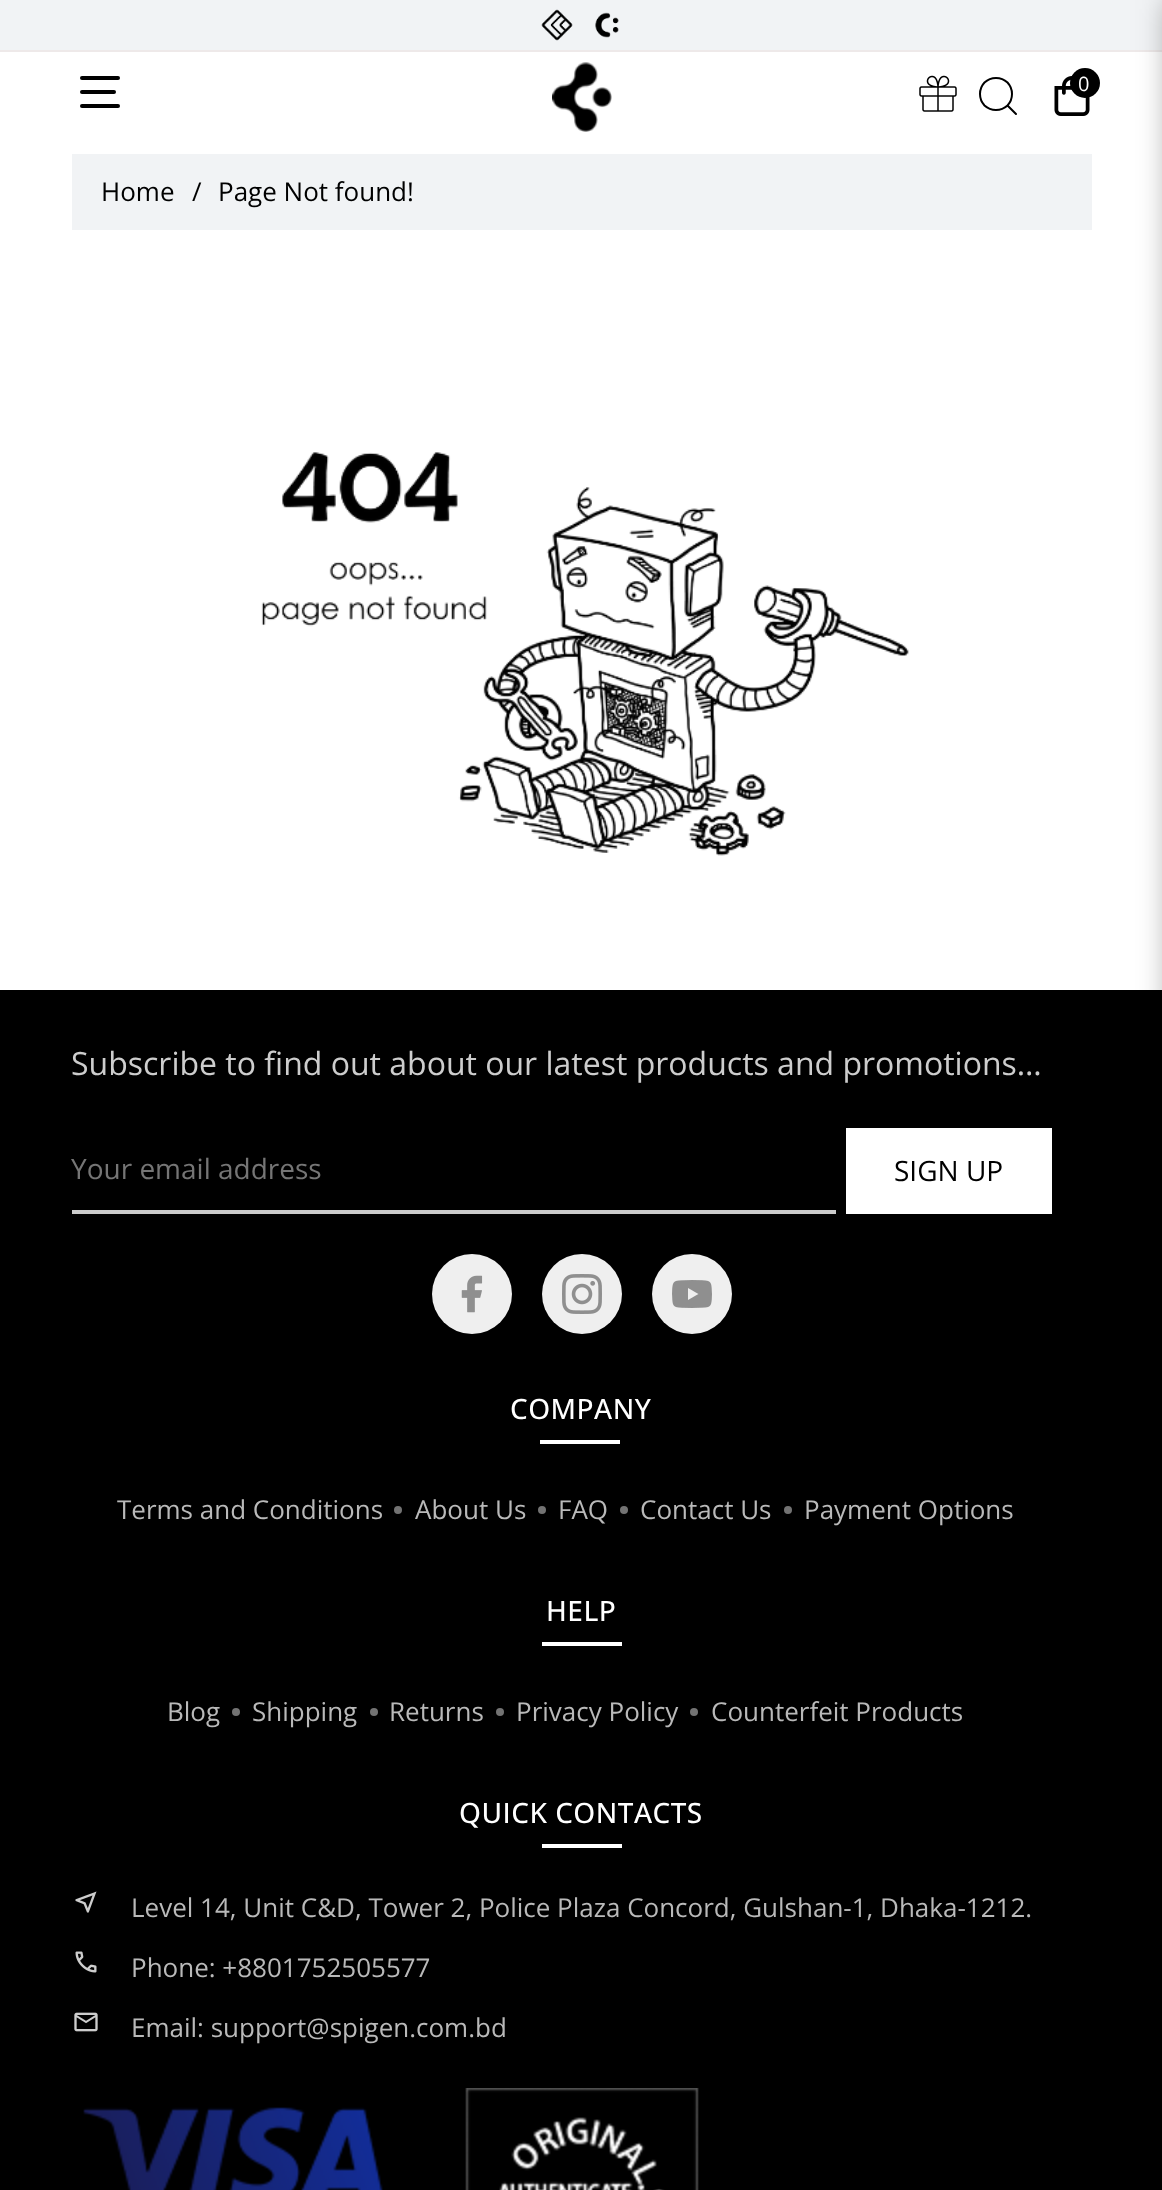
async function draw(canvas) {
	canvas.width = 1162;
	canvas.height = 2190;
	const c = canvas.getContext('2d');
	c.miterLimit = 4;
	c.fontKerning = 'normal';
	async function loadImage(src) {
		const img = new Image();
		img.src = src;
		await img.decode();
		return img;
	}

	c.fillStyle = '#fff';
	c.fillRect(0, 0, 1162, 2190);
	c.fillStyle = '#f1f3f5';
	c.fillRect(0, 0, 1162, 50);
	c.fillStyle = '#eee9e9';
	c.fillRect(0, 50, 1162, 2);
	c.drawImage(await loadImage('img1.png'), 541, 9, 32, 32);
	c.drawImage(await loadImage('img2.png'), 595, 12, 24, 26);
	c.fillStyle = '#000';
	c.beginPath();
	c.roundRect(80, 90, 36, 4, 2);
	c.fill();
	c.beginPath();
	c.roundRect(80, 76, 40, 4, 2);
	c.fill();
	c.beginPath();
	c.roundRect(80, 104, 40, 4, 2);
	c.fill();
	c.drawImage(await loadImage('img3.png'), 552, 62, 60, 70);
	c.drawImage(await loadImage('img4.png'), 919, 75, 38, 37);
	c.beginPath();
	c.moveTo(1016, 114);
	c.lineTo(1007.5, 105.5);
	c.moveTo(1007.5, 105.5);
	c.bezierCurveTo(1013.5, 99, 1013.5, 89, 1007.5, 82.5);
	c.bezierCurveTo(1001, 76.5, 991, 76.5, 984.5, 82.5);
	c.bezierCurveTo(978.5, 89, 978.5, 99, 984.5, 105.5);
	c.bezierCurveTo(991, 111.5, 1001, 111.5, 1007.5, 105.5);
	c.strokeStyle = '#000';
	c.lineWidth = 2;
	c.lineCap = 'round';
	c.lineJoin = 'round';
	c.stroke();
	c.drawImage(await loadImage('img5.png'), 1054, 76, 36, 40);
	c.beginPath();
	c.arc(1085, 83, 15, 0, 2 * Math.PI);
	c.fill();
	c.font = '20px Open Sans';
	c.fillStyle = '#fff';
	c.fillText('0', 1078, 91);
	c.fillStyle = '#000';
	c.fillRect(0, 990, 1162, 1200);
	c.fillStyle = '#0000004d';
	c.filter = 'blur(14px)';
	c.beginPath();
	c.rect(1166, 0, 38, 2190);
	c.fill();
	c.filter = 'none';
	c.fillStyle = '#f1f3f5';
	c.fillRect(72, 154, 1020, 76);
	c.font = '26px Open Sans';
	c.fillStyle = '#000';
	for (const [text, x, y] of [
		['Home', 101, 201],
		['/', 192, 201],
		['Page Not found!', 218, 201],
	]) {
		c.fillText(text, x, y);
	}
	c.drawImage(await loadImage('img6.png'), 261, 452, 648, 404);
	c.font = '32px Open Sans';
	c.fillStyle = '#cdcdcd';
	c.fillText('Subscribe to find out about our latest products and promotions…', 71, 1075);
	c.fillStyle = '#ccc';
	c.fillRect(72, 1210, 764, 4);
	c.font = '28px Open Sans';
	c.fillStyle = '#757575';
	c.fillText('Your email address', 71, 1179);
	c.fillStyle = '#fff';
	c.fillRect(846, 1128, 206, 86);
	c.fillStyle = '#000';
	c.fillText('SIGN UP', 894, 1181);
	c.fillStyle = '#efefef';
	c.beginPath();
	c.arc(472, 1294, 40, 0, 2 * Math.PI);
	c.fill();
	c.drawImage(await loadImage('img7.png'), 461, 1275, 22, 38);
	c.beginPath();
	c.arc(582, 1294, 40, 0, 2 * Math.PI);
	c.fill();
	c.drawImage(await loadImage('img8.png'), 562, 1274, 40, 40);
	c.beginPath();
	c.arc(692, 1294, 40, 0, 2 * Math.PI);
	c.fill();
	c.drawImage(await loadImage('img9.png'), 672, 1280, 40, 28);
	c.letterSpacing = '0.5px';
	c.font = '500 28px Open Sans';
	c.fillStyle = '#fff';
	c.fillText('COMPANY', 510, 1419);
	c.fillRect(540, 1440, 80, 4);
	c.letterSpacing = '0px';
	c.font = '26px Open Sans';
	c.fillStyle = '#b9b9b9';
	c.fillText('Terms and Conditions', 117, 1519);
	c.fillStyle = '#737373';
	c.beginPath();
	c.arc(398, 1510, 4, 0, 2 * Math.PI);
	c.fill();
	c.fillStyle = '#b9b9b9';
	c.fillText('About Us', 415, 1519);
	c.fillStyle = '#737373';
	c.beginPath();
	c.arc(542, 1510, 4, 0, 2 * Math.PI);
	c.fill();
	c.fillStyle = '#b9b9b9';
	c.fillText('FAQ', 558, 1519);
	c.fillStyle = '#737373';
	c.beginPath();
	c.arc(624, 1510, 4, 0, 2 * Math.PI);
	c.fill();
	c.fillStyle = '#b9b9b9';
	c.fillText('Contact Us', 640, 1519);
	c.fillStyle = '#737373';
	c.beginPath();
	c.arc(788, 1510, 4, 0, 2 * Math.PI);
	c.fill();
	c.fillStyle = '#b9b9b9';
	c.fillText('Payment Options', 804, 1519);
	c.letterSpacing = '0.5px';
	c.font = '500 28px Open Sans';
	c.fillStyle = '#fff';
	c.fillText('HELP', 546, 1621);
	c.fillRect(542, 1642, 80, 4);
	c.letterSpacing = '0px';
	c.font = '26px Open Sans';
	c.fillStyle = '#b9b9b9';
	c.fillText('Blog', 167, 1721);
	c.fillStyle = '#737373';
	c.beginPath();
	c.arc(236, 1712, 4, 0, 2 * Math.PI);
	c.fill();
	c.fillStyle = '#b9b9b9';
	c.fillText('Shipping', 252, 1721);
	c.fillStyle = '#737373';
	c.beginPath();
	c.arc(374, 1712, 4, 0, 2 * Math.PI);
	c.fill();
	c.fillStyle = '#b9b9b9';
	c.fillText('Returns', 389, 1721);
	c.fillStyle = '#737373';
	c.beginPath();
	c.arc(500, 1712, 4, 0, 2 * Math.PI);
	c.fill();
	c.fillStyle = '#b9b9b9';
	c.fillText('Privacy Policy', 516, 1721);
	c.fillStyle = '#737373';
	c.beginPath();
	c.arc(694, 1712, 4, 0, 2 * Math.PI);
	c.fill();
	c.fillStyle = '#b9b9b9';
	c.fillText('Counterfeit Products', 711, 1721);
	c.letterSpacing = '0.5px';
	c.font = '500 28px Open Sans';
	c.fillStyle = '#fff';
	c.fillText('QUICK CONTACTS', 459, 1823);
	c.fillRect(542, 1844, 80, 4);
	c.drawImage(await loadImage('img10.png'), 75, 1891, 22, 22);
	c.letterSpacing = '0px';
	c.font = '26px Open Sans';
	c.fillStyle = '#b9b9b9';
	c.fillText('Level 14, Unit C&D, Tower 2, Police Plaza Concord, Gulshan-1, Dhaka-1212.', 131, 1917);
	c.drawImage(await loadImage('img11.png'), 75, 1951, 22, 22);
	c.fillText('Phone: +8801752505577', 131, 1977);
	c.drawImage(await loadImage('img12.png'), 74, 2012, 24, 20);
	c.fillText('Email: support@spigen.com.bd', 131, 2037);
	c.drawImage(await loadImage('img13.png'), 83, 2088, 616, 102);
}

draw(document.querySelector('canvas'));
